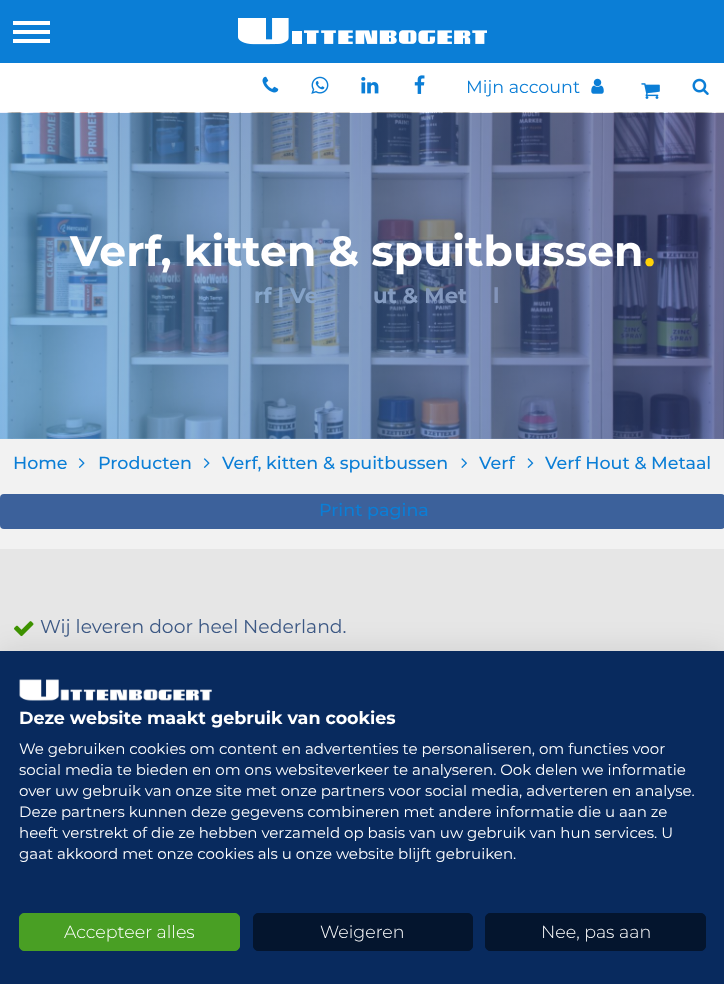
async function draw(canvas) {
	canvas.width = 724;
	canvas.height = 984;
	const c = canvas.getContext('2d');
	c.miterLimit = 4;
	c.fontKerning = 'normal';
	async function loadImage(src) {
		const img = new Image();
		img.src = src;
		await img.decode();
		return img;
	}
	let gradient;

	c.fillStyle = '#fff';
	c.fillRect(0, 0, 724, 984);
	c.fillStyle = '#0b7ed6';
	c.fillRect(0, 0, 724, 63);
	c.drawImage(await loadImage('img1.png'), 238, 18, 249, 27);
	for (const [x, y, w, h, color] of [
		[13, 30, 37, 4, '#fff'],
		[13, 21, 37, 4, '#fff'],
		[13, 39, 37, 4, '#fff'],
	]) {
		c.fillStyle = color;
		c.fillRect(x, y, w, h);
	}
	c.drawImage(await loadImage('img2.png'), 262, 76, 17, 17);
	c.drawImage(await loadImage('img3.png'), 311, 76, 18, 18);
	c.drawImage(await loadImage('img4.png'), 361, 77, 18, 17);
	c.drawImage(await loadImage('img5.png'), 414, 75, 11, 19);
	c.font = '17.5px Montserrat';
	c.fillStyle = '#0b7ed6';
	c.fillText('Mijn account', 466, 93);
	c.drawImage(await loadImage('img6.png'), 591, 78, 13, 16);
	c.drawImage(await loadImage('img7.png'), 641, 83, 19, 16);
	c.drawImage(await loadImage('img8.png'), 692, 78, 17, 17);
	c.drawImage(await loadImage('img9.png'), 0, 112, 724, 327);
	c.font = 'bold 21.25px Montserrat';
	c.fillStyle = '#fff';
	for (const [text, x, y] of [
		['rf | Ve', 254, 303],
		['ut & Met', 373, 303],
		['l', 493, 303],
	]) {
		c.fillText(text, x, y);
	}
	gradient = c.createLinearGradient(-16, 384, 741, 167);
	gradient.addColorStop(0.07, '#4193d099');
	gradient.addColorStop(0.54, '#33599799');
	gradient.addColorStop(1, '#2a2e7099');
	c.fillStyle = gradient;
	c.fillRect(0, 113, 724, 326);
	c.font = 'bold 42.5px Montserrat';
	c.fillStyle = '#fff';
	c.fillText('Verf, kitten & spuitbussen', 70, 266);
	c.fillStyle = '#fed209';
	c.fillText('.', 644, 266);
	c.fillStyle = '#f2f2f2';
	c.fillRect(0, 439, 724, 110);
	c.font = '500 17.5px Montserrat';
	c.fillStyle = '#0b7ed6';
	c.fillText('Home', 13, 469);
	c.drawImage(await loadImage('img10.png'), 78, 458, 7, 10);
	c.fillText('Producten', 98, 469);
	c.drawImage(await loadImage('img10.png'), 203, 458, 7, 10);
	c.fillText('Verf, kitten & spuitbussen', 222, 469);
	c.drawImage(await loadImage('img11.png'), 461, 458, 6, 10);
	c.fillText('Verf', 479, 469);
	c.drawImage(await loadImage('img12.png'), 527, 458, 7, 10);
	c.fillText('Verf Hout & Metaal', 545, 469);
	c.fillStyle = '#3c619b';
	c.beginPath();
	c.roundRect(0, 494, 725, 35, 4);
	c.fill();
	c.fillStyle = '#0b7ed6';
	c.fillText('Print pagina', 319, 516);
	c.fillStyle = '#e6e6e6';
	c.fillRect(0, 549, 724, 102);
	c.drawImage(await loadImage('img13.png'), 14, 621, 20, 16);
	c.font = '18.75px Montserrat';
	c.fillStyle = '#3d5985';
	c.fillText('Wij leveren door heel Nederland.', 40, 633);
	c.fillStyle = '#0000001a';
	c.filter = 'blur(15px)';
	c.beginPath();
	c.rect(0, 651, 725, 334);
	c.fill();
	c.filter = 'none';
	c.fillStyle = '#082a5e';
	c.fillRect(0, 651, 724, 333);
	c.drawImage(await loadImage('img14.png'), 19, 679, 193, 22);
	c.font = 'bold 17.5px Montserrat';
	c.fillStyle = '#fff';
	c.fillText('Deze website maakt gebruik van cookies', 19, 724);
	c.font = '15px Montserrat';
	for (const [text, x, y] of [
		['We gebruiken cookies om content en advertenties te personaliseren, om functies voor', 19, 754],
		['social media te bieden en om ons websiteverkeer te analyseren. Ook delen we informatie', 19, 775],
		['over uw gebruik van onze site met onze partners voor social media, adverteren en analyse.', 19, 796],
		['Deze partners kunnen deze gegevens combineren met andere informatie die u aan ze', 19, 817],
		['heeft verstrekt of die ze hebben verzameld op basis van uw gebruik van hun services. U', 19, 838],
		['gaat akkoord met onze cookies als u onze website blijft gebruiken.', 19, 859],
	]) {
		c.fillText(text, x, y);
	}
	c.fillStyle = '#499f24';
	c.beginPath();
	c.roundRect(19.5, 913.5, 220, 37, 4.5);
	c.fill();
	c.strokeStyle = '#499f24';
	c.stroke();
	c.font = '300 17.5px Montserrat';
	c.fillStyle = '#fff';
	c.fillText('Accepteer alles', 64, 938);
	c.fillStyle = '#04152e';
	c.beginPath();
	c.roundRect(253.5, 913.5, 219, 37, 4.5);
	c.fill();
	c.strokeStyle = '#04152e';
	c.stroke();
	c.fillStyle = '#fff';
	c.fillText('Weigeren', 320, 938);
	c.fillStyle = '#04152e';
	c.beginPath();
	c.roundRect(485.5, 913.5, 220, 37, 4.5);
	c.fill();
	c.stroke();
	c.fillStyle = '#fff';
	c.fillText('Nee, pas aan', 541, 938);
}

draw(document.querySelector('canvas'));
